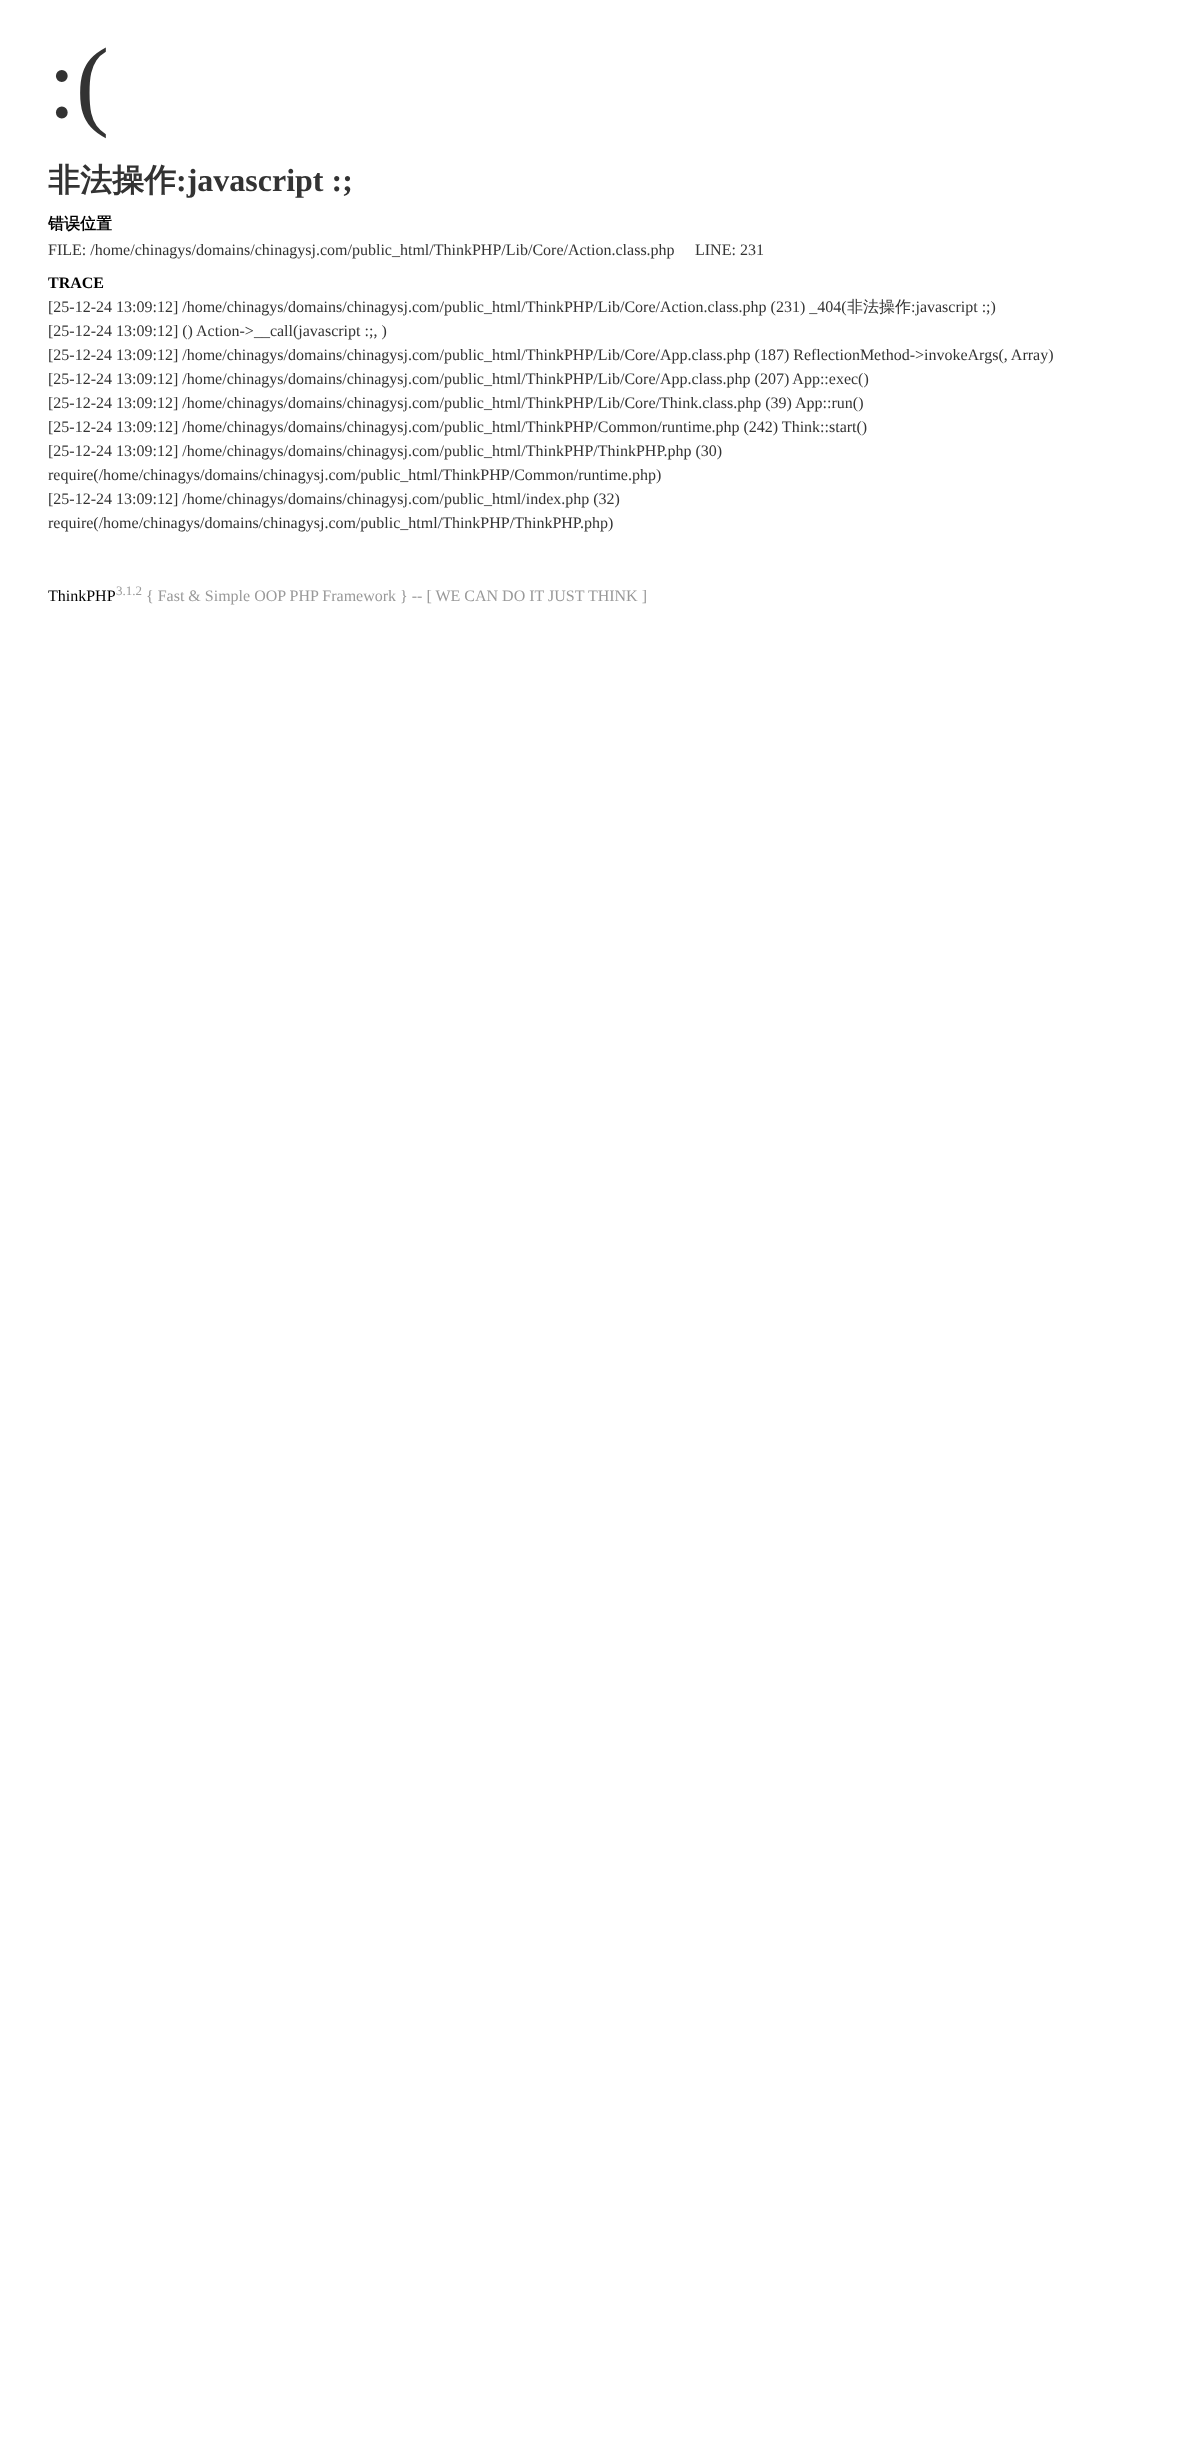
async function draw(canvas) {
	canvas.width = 1179;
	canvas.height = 2453;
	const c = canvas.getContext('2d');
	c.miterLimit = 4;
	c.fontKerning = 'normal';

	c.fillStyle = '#fff';
	c.fillRect(0, 0, 1179, 2453);
	c.font = '100px Liberation Serif';
	c.fillStyle = '#333';
	c.fillText(':(', 48, 117);
	c.font = 'bold 32px WenQuanYi Zen Hei';
	c.fillText('非法操作', 48, 191);
	c.font = 'bold 32px Liberation Serif';
	c.fillText(':javascript :;', 176, 191);
	c.font = 'bold 16px WenQuanYi Zen Hei';
	c.fillStyle = '#000';
	c.fillText('错误位置', 48, 229);
	c.font = '16px Liberation Serif';
	c.fillStyle = '#333';
	c.fillText('FILE: /home/chinagys/domains/chinagysj.com/public_html/ThinkPHP/Lib/Core/Action.class.php', 48, 255);
	c.fillText('LINE: 231', 695, 255);
	c.font = 'bold 16px Liberation Serif';
	c.fillStyle = '#000';
	c.fillText('TRACE', 48, 288);
	c.font = '16px Liberation Serif';
	c.fillStyle = '#333';
	c.fillText('[25-12-24 13:09:12] /home/chinagys/domains/chinagysj.com/public_html/ThinkPHP/Lib/Core/Action.class.php (231) _404(', 48, 312);
	c.font = '500 16px WenQuanYi Zen Hei';
	c.fillText('非法操作', 847, 312);
	c.font = '16px Liberation Serif';
	for (const [text, x, y] of [
		[':javascript :;)', 911, 312],
		['[25-12-24 13:09:12] () Action->__call(javascript :;, )', 48, 336],
		['[25-12-24 13:09:12] /home/chinagys/domains/chinagysj.com/public_html/ThinkPHP/Lib/Core/App.class.php (187) ReflectionMethod->invokeArgs(, Array)', 48, 360],
		['[25-12-24 13:09:12] /home/chinagys/domains/chinagysj.com/public_html/ThinkPHP/Lib/Core/App.class.php (207) App::exec()', 48, 384],
		['[25-12-24 13:09:12] /home/chinagys/domains/chinagysj.com/public_html/ThinkPHP/Lib/Core/Think.class.php (39) App::run()', 48, 408],
		['[25-12-24 13:09:12] /home/chinagys/domains/chinagysj.com/public_html/ThinkPHP/Common/runtime.php (242) Think::start()', 48, 432],
		['[25-12-24 13:09:12] /home/chinagys/domains/chinagysj.com/public_html/ThinkPHP/ThinkPHP.php (30)', 48, 456],
		['require(/home/chinagys/domains/chinagysj.com/public_html/ThinkPHP/Common/runtime.php)', 48, 480],
		['[25-12-24 13:09:12] /home/chinagys/domains/chinagysj.com/public_html/index.php (32)', 48, 504],
		['require(/home/chinagys/domains/chinagysj.com/public_html/ThinkPHP/ThinkPHP.php)', 48, 528],
	]) {
		c.fillText(text, x, y);
	}
	c.fillStyle = '#000';
	c.fillText('ThinkPHP', 48, 601);
	c.font = '13px Liberation Serif';
	c.fillStyle = '#999';
	c.fillText('3.1.2', 116, 595);
	c.font = '16px Liberation Serif';
	c.fillText('{ Fast & Simple OOP PHP Framework } -- [ WE CAN DO IT JUST THINK ]', 146, 601);
}

draw(document.querySelector('canvas'));
